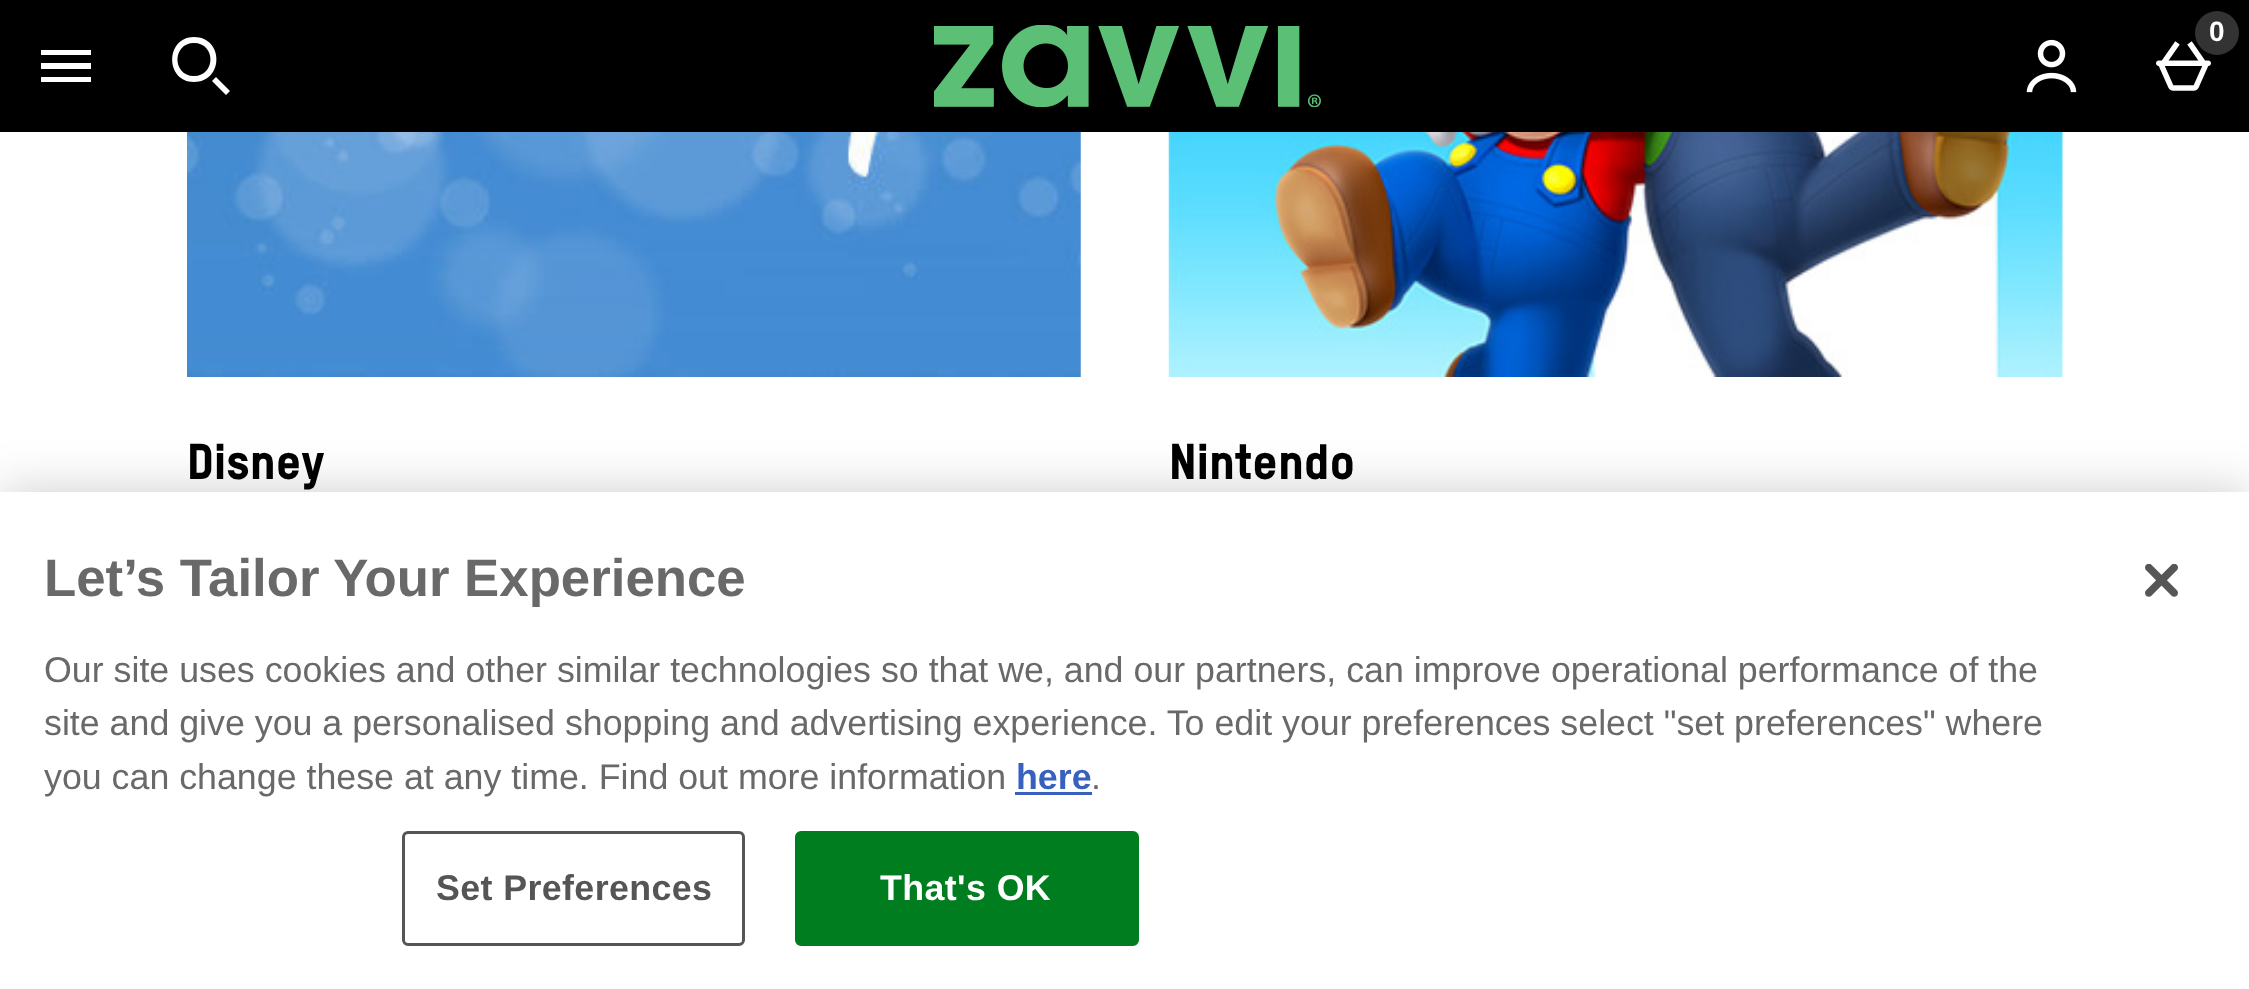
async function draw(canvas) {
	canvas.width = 2249;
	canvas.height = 989;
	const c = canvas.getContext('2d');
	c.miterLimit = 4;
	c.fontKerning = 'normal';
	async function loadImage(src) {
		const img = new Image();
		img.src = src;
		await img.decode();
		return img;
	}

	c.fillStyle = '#fff';
	c.fillRect(0, 0, 2249, 989);
	c.fillStyle = '#000';
	c.fillRect(0, 0, 2249, 132);
	c.fillStyle = '#fff';
	c.beginPath();
	c.moveTo(41, 63);
	c.lineTo(91, 63);
	c.lineTo(91, 69);
	c.lineTo(41, 69);
	c.closePath();
	c.moveTo(41, 50);
	c.lineTo(91, 50);
	c.lineTo(91, 55);
	c.lineTo(41, 55);
	c.closePath();
	c.moveTo(41, 77);
	c.lineTo(91, 77);
	c.lineTo(91, 82);
	c.lineTo(41, 82);
	c.closePath();
	c.fill();
	c.beginPath();
	c.moveTo(194, 76);
	c.bezierCurveTo(216, 76, 216, 43, 194, 43);
	c.bezierCurveTo(172, 43, 172, 76, 194, 76);
	c.closePath();
	c.moveTo(194, 82);
	c.bezierCurveTo(165, 82, 165, 37, 194, 37);
	c.bezierCurveTo(224, 37, 224, 82, 194, 82);
	c.closePath();
	c.moveTo(230, 91);
	c.lineTo(226, 95);
	c.lineTo(212, 81);
	c.lineTo(216, 77);
	c.closePath();
	c.fill();
	c.drawImage(await loadImage('img1.png'), 934, 25, 387, 82);
	c.drawImage(await loadImage('img2.png'), 2026, 39, 51, 54);
	c.drawImage(await loadImage('img3.png'), 2156, 41, 55, 50);
	c.fillStyle = '#333';
	c.beginPath();
	c.arc(2217, 33, 22, 0, 2 * Math.PI);
	c.fill();
	c.font = 'bold 28px Liberation Sans';
	c.fillStyle = '#fff';
	c.fillText('0', 2209, 41);
	c.drawImage(await loadImage('img4.png'), 187, 132, 894, 245);
	c.font = '900 49.5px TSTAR';
	c.fillStyle = '#000';
	c.fillText('Disney', 187, 479);
	c.drawImage(await loadImage('img5.png'), 1168, 132, 895, 245);
	c.fillText('Nintendo', 1169, 479);
	c.fillStyle = '#00000033';
	c.filter = 'blur(25px)';
	c.beginPath();
	c.rect(0, 492, 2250, 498);
	c.fill();
	c.filter = 'none';
	c.fillStyle = '#fff';
	c.fillRect(0, 492, 2249, 497);
	c.font = 'bold 52.75px Liberation Sans';
	c.fillStyle = '#696969';
	c.fillText('Let’s Tailor Your Experience', 44, 596);
	c.font = '35.77px Liberation Sans';
	for (const [text, x, y] of [
		['Our site uses cookies and other similar technologies so that we, and our partners, can improve operational performance of the', 44, 682],
		['site and give you a personalised shopping and advertising experience. To edit your preferences select "set preferences" where', 44, 735],
		['you can change these at any time. Find out more information', 44, 789],
	]) {
		c.fillText(text, x, y);
	}
	c.font = 'bold 35.77px Liberation Sans';
	c.fillStyle = '#3860be';
	c.fillText('here', 1016, 789);
	c.fillRect(1015, 792, 77, 3);
	c.font = '35.77px Liberation Sans';
	c.fillStyle = '#696969';
	c.fillText('.', 1091, 789);
	c.beginPath();
	c.roundRect(403.5, 832.5, 340, 112, 4.5);
	c.strokeStyle = '#555';
	c.lineWidth = 3;
	c.stroke();
	c.letterSpacing = '0.4px';
	c.font = 'bold 35.77px Liberation Sans';
	c.fillStyle = '#555';
	c.fillText('Set Preferences', 436, 900);
	c.fillStyle = '#007d1e';
	c.beginPath();
	c.roundRect(796.5, 832.5, 341, 112, 4.5);
	c.fill();
	c.strokeStyle = '#007d1e';
	c.stroke();
	c.fillStyle = '#fff';
	c.fillText('That\'s OK', 880, 900);
	c.drawImage(await loadImage('img6.png'), 2145, 564, 33, 33);
}

draw(document.querySelector('canvas'));
